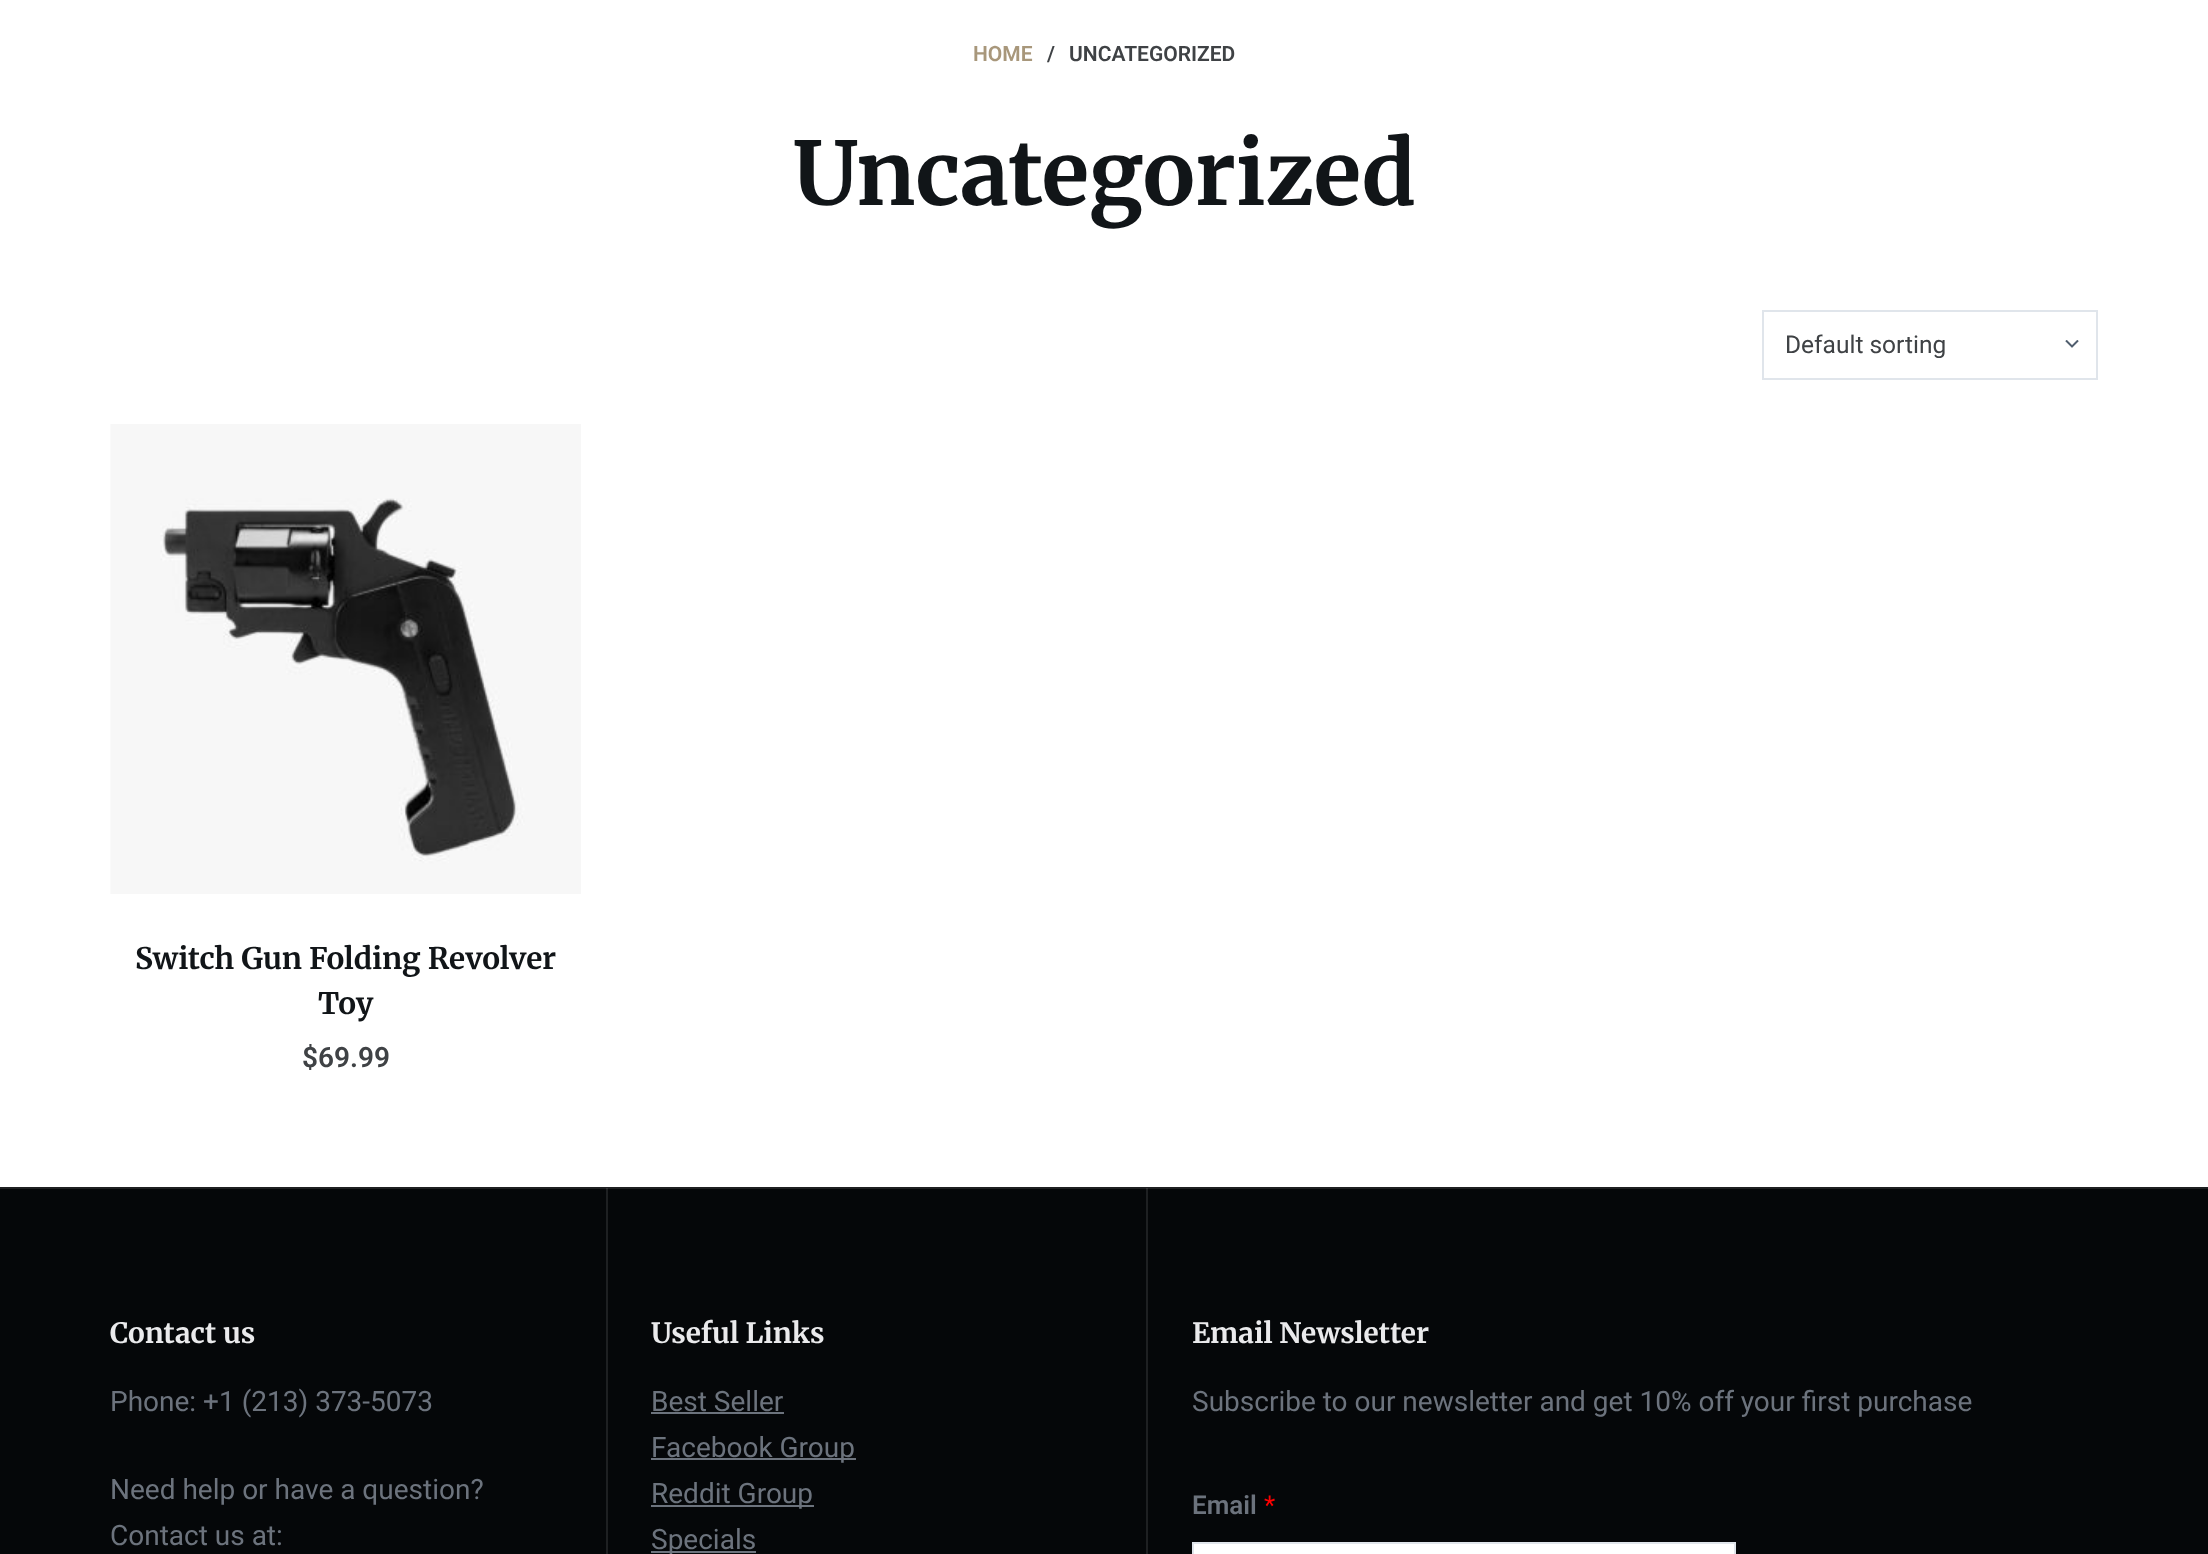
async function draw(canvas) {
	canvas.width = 2208;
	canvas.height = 1554;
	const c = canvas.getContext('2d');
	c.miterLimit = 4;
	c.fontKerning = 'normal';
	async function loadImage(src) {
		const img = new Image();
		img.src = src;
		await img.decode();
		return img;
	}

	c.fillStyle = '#fff';
	c.fillRect(0, 0, 2208, 1554);
	c.font = '600 21px Roboto';
	c.fillStyle = '#a8977b';
	c.fillText('HOME', 973, 61);
	c.fillStyle = '#3f4245';
	c.fillText('/', 1047, 61);
	c.fillText('UNCATEGORIZED', 1069, 61);
	c.font = '300 87.5px Merriweather';
	c.fillStyle = '#111518';
	c.fillText('Uncategorized', 793, 205);
	c.drawImage(await loadImage('img1.png'), 2065, 340, 14, 8);
	c.strokeStyle = '#e0e5eb';
	c.lineWidth = 2;
	c.strokeRect(1763, 311, 334, 68);
	c.font = '24.5px Roboto';
	c.fillStyle = '#3f4245';
	c.fillText('Default sorting', 1785, 353);
	c.drawImage(await loadImage('img2.png'), 110, 424, 471, 470);
	c.font = '300 29.75px Merriweather';
	c.fillStyle = '#111518';
	c.fillText('Switch Gun Folding Revolver', 135, 969);
	c.fillText('Toy', 318, 1014);
	c.font = '600 28px Roboto';
	c.fillStyle = '#3f4245';
	c.fillText('$69.99', 302, 1067);
	for (const [x, y, w, h, color] of [
		[0, 1189, 2208, 365, '#050709'],
		[1146, 1188, 2, 366, '#1e2022'],
		[606, 1188, 2, 366, '#1e2022'],
		[0, 1187, 2208, 2, '#1e2022'],
		[1146, 1188, 2, 1, '#353638'],
		[606, 1188, 2, 1, '#353638'],
	]) {
		c.fillStyle = color;
		c.fillRect(x, y, w, h);
	}
	c.font = '300 28px Merriweather';
	c.fillStyle = '#eaeaec';
	c.fillText('Contact us', 110, 1343);
	c.font = '28px Roboto';
	c.fillStyle = '#6c737d';
	for (const [text, x, y] of [
		['Phone: +1 (213) 373-5073', 110, 1411],
		['Need help or have a question?', 110, 1499],
		['Contact us at:', 110, 1545],
	]) {
		c.fillText(text, x, y);
	}
	c.font = '300 28px Merriweather';
	c.fillStyle = '#eaeaec';
	c.fillText('Useful Links', 651, 1343);
	c.font = '28px Roboto';
	c.fillStyle = '#6c737d';
	c.fillText('Best Seller', 651, 1411);
	c.fillRect(651, 1412, 133, 2);
	c.fillRect(651, 1458, 205, 2);
	c.fillText('Facebook Group', 651, 1457);
	c.fillRect(651, 1505, 163, 2);
	c.fillText('Reddit Group', 651, 1503);
	c.fillRect(651, 1551, 105, 2);
	c.fillText('Specials', 651, 1549);
	c.font = '300 28px Merriweather';
	c.fillStyle = '#eaeaec';
	c.fillText('Email Newsletter', 1192, 1343);
	c.font = '28px Roboto';
	c.fillStyle = '#6c737d';
	c.fillText('Subscribe to our newsletter and get 10% off your first purchase', 1192, 1411);
	c.font = '600 26px Roboto';
	c.fillText('Email', 1192, 1514);
	c.font = '26px Roboto';
	c.fillStyle = '#f00';
	c.fillText('*', 1264, 1514);
	c.fillStyle = '#fff';
	c.beginPath();
	c.rect(1193, 1543, 542, 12);
	c.fill();
	c.stroke();
}

draw(document.querySelector('canvas'));
